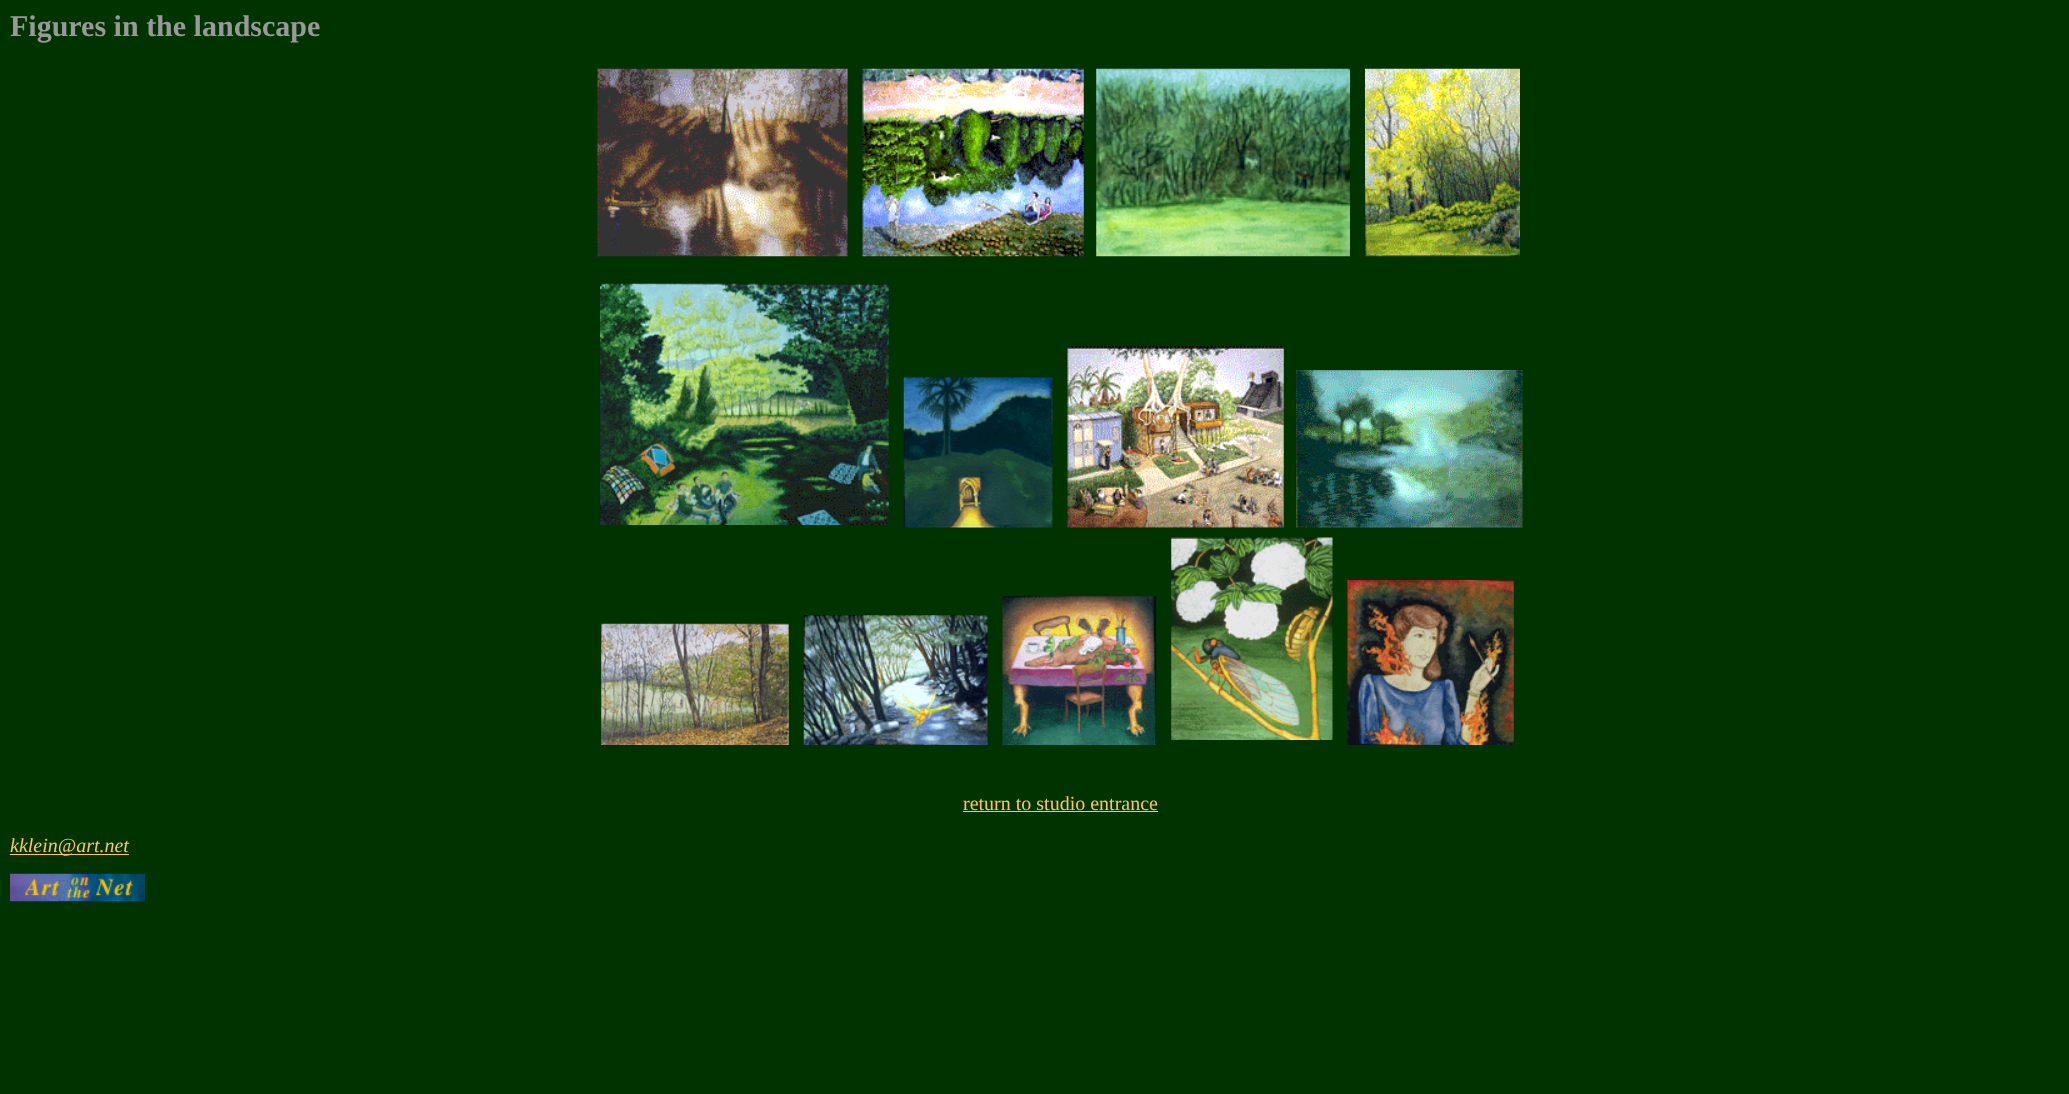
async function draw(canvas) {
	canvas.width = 2069;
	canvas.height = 1094;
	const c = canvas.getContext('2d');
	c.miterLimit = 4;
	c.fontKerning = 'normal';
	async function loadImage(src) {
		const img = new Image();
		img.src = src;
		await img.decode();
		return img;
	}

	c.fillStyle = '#030';
	c.fillRect(0, 0, 2069, 1094);
	c.font = 'bold 30px Liberation Serif';
	c.fillStyle = '#999';
	c.fillText('Figures in the landscape', 10, 36);
	c.drawImage(await loadImage('img1.png'), 597, 68, 251, 189);
	c.drawImage(await loadImage('img2.png'), 862, 68, 222, 189);
	c.drawImage(await loadImage('img3.png'), 1096, 68, 254, 189);
	c.drawImage(await loadImage('img4.png'), 1365, 68, 155, 189);
	c.drawImage(await loadImage('img5.png'), 600, 283, 289, 242);
	c.drawImage(await loadImage('img6.png'), 903, 377, 150, 151);
	c.drawImage(await loadImage('img7.png'), 1067, 346, 217, 182);
	c.drawImage(await loadImage('img8.png'), 1296, 370, 227, 158);
	c.drawImage(await loadImage('img9.png'), 601, 623, 188, 122);
	c.drawImage(await loadImage('img10.png'), 803, 615, 185, 130);
	c.drawImage(await loadImage('img11.png'), 1002, 596, 155, 149);
	c.drawImage(await loadImage('img12.png'), 1171, 537, 162, 203);
	c.drawImage(await loadImage('img13.png'), 1347, 580, 167, 165);
	c.font = '20px Liberation Serif';
	c.fillStyle = '#ffc655';
	c.fillText('return to studio entrance', 963, 810);
	c.fillRect(963, 811, 195, 1);
	c.fillRect(10, 854, 119, 1);
	c.font = 'italic 20px Liberation Serif';
	c.fillText('kklein@art.net', 10, 852);
	c.drawImage(await loadImage('img14.png'), 10, 873, 135, 29);
}

draw(document.querySelector('canvas'));
